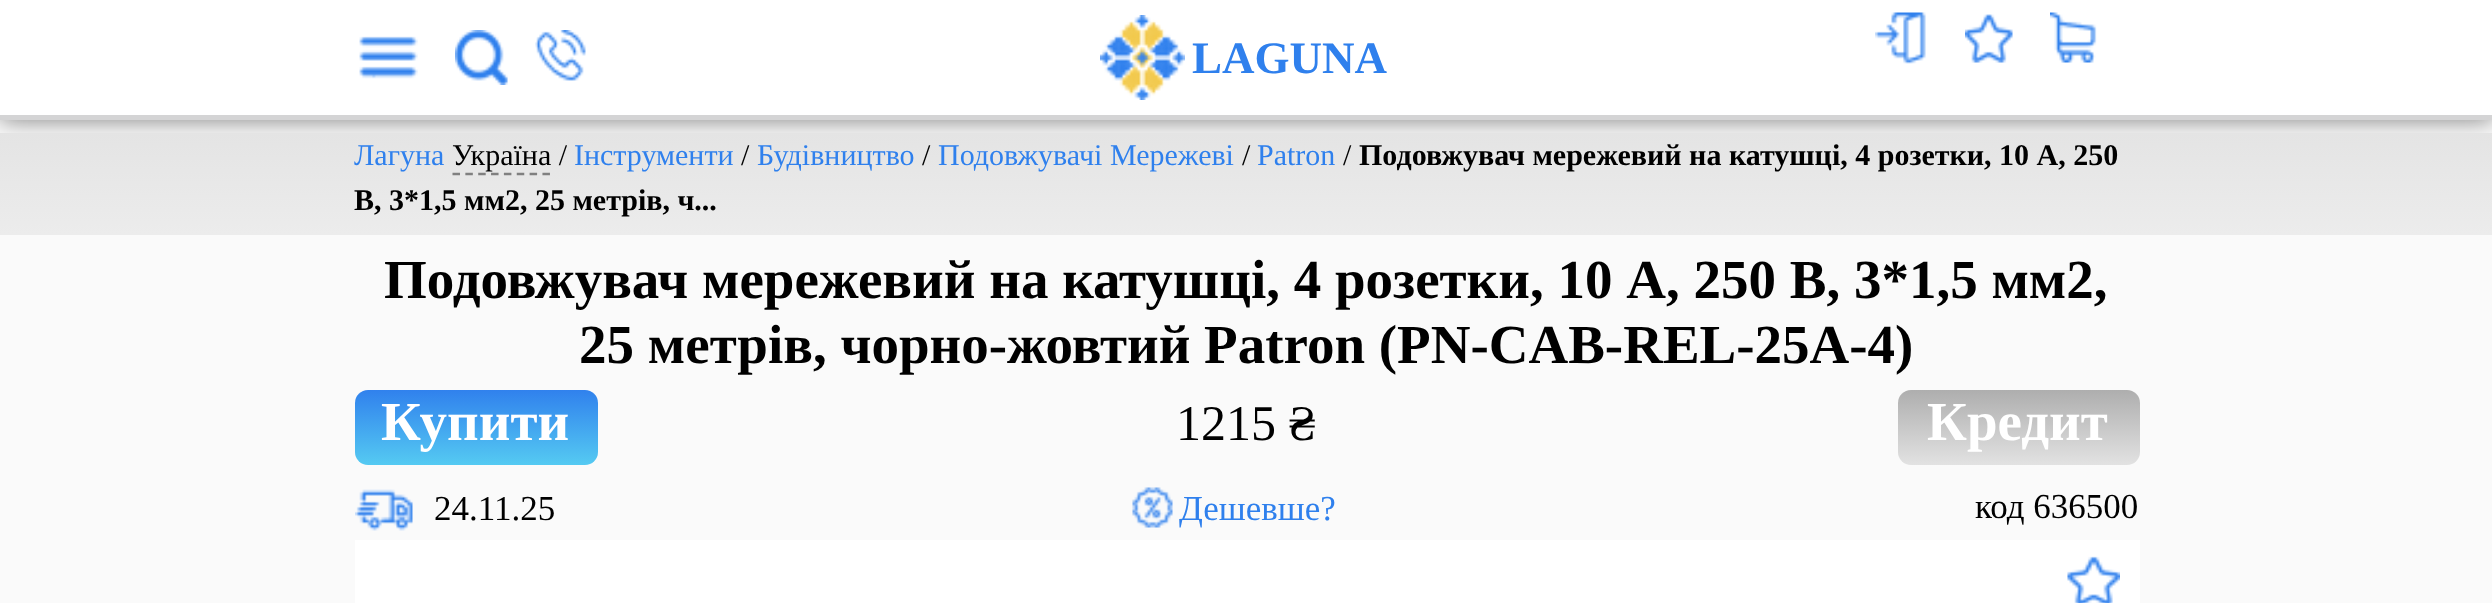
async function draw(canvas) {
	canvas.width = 2492;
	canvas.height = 603;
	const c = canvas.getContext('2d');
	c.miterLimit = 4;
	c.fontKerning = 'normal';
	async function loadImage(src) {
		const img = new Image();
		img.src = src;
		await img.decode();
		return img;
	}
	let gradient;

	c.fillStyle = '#fafafa';
	c.fillRect(0, 0, 2492, 603);
	c.fillStyle = '#00000080';
	c.filter = 'blur(12.5px)';
	c.beginPath();
	c.rect(0, 0, 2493, 120);
	c.fill();
	c.filter = 'none';
	c.fillStyle = '#fff';
	c.fillRect(0, 0, 2492, 115);
	c.fillStyle = '#d4d4d5';
	c.fillRect(0, 115, 2492, 5);
	c.drawImage(await loadImage('img1.png'), 359, 36, 59, 43);
	c.drawImage(await loadImage('img2.png'), 455, 30, 53, 55);
	c.drawImage(await loadImage('img3.png'), 535, 30, 51, 51);
	c.drawImage(await loadImage('img4.png'), 1100, 15, 85, 85);
	c.font = 'bold 45px Liberation Serif';
	c.fillStyle = '#2f80ed';
	c.fillText('LAGUNA', 1192, 73);
	c.drawImage(await loadImage('img5.png'), 1875, 12, 51, 52);
	c.drawImage(await loadImage('img6.png'), 1965, 14, 48, 49);
	c.drawImage(await loadImage('img7.png'), 2050, 12, 47, 51);
	gradient = c.createLinearGradient(1246, 132, 1246, 235);
	gradient.addColorStop(0, '#e4e4e4');
	gradient.addColorStop(1, '#ececec');
	c.fillStyle = gradient;
	c.fillRect(0, 133, 2492, 102);
	c.font = '30px Liberation Serif';
	c.fillStyle = '#2f80ed';
	c.fillText('Лагуна', 354, 165);
	c.fillStyle = '#000';
	c.fillText('Україна /', 452, 165);
	c.beginPath();
	c.moveTo(452.5, 174);
	c.lineTo(550, 174);
	c.strokeStyle = '#808080';
	c.lineWidth = 2.5;
	c.setLineDash([7.5, 5.35]);
	c.stroke();
	c.fillStyle = '#2f80ed';
	c.fillText('Інструменти', 574, 165);
	c.fillStyle = '#000';
	c.fillText('/', 741, 165);
	c.fillStyle = '#2f80ed';
	c.fillText('Будівництво', 757, 165);
	c.fillStyle = '#000';
	c.fillText('/', 922, 165);
	c.fillStyle = '#2f80ed';
	c.fillText('Подовжувачі Мережеві', 938, 165);
	c.fillStyle = '#000';
	c.fillText('/', 1242, 165);
	c.fillStyle = '#2f80ed';
	c.fillText('Patron', 1257, 165);
	c.fillStyle = '#000';
	c.fillText('/', 1343, 165);
	c.font = 'bold 30px Liberation Serif';
	c.fillText('Подовжувач мережевий на катушці, 4 розетки, 10 А, 250', 1359, 165);
	c.fillText('В, 3*1,5 мм2, 25 метрів, ч...', 354, 210);
	c.font = 'bold 55px Liberation Serif';
	c.fillText('Подовжувач мережевий на катушці, 4 розетки, 10 А, 250 В, 3*1,5 мм2,', 384, 298);
	c.fillText('25 метрів, чорно-жовтий Patron (PN-CAB-REL-25A-4)', 579, 363);
	gradient = c.createLinearGradient(476, 390, 476, 465);
	gradient.addColorStop(0, '#3081ed');
	gradient.addColorStop(1, '#55caf2');
	c.fillStyle = gradient;
	c.beginPath();
	c.roundRect(355, 390, 243, 75, 13);
	c.fill();
	c.fillStyle = '#fff';
	c.fillText('Купити', 381, 440);
	gradient = c.createLinearGradient(2019, 390, 2019, 465);
	gradient.addColorStop(0, '#aeaeae');
	gradient.addColorStop(1, '#e2e2e2');
	c.fillStyle = gradient;
	c.beginPath();
	c.roundRect(1898, 390, 242, 75, 13);
	c.fill();
	c.fillStyle = '#fff';
	c.fillText('Кредит', 1927, 440);
	c.font = '50px Liberation Serif';
	c.fillStyle = '#000';
	c.fillText('1215 ₴', 1176, 440);
	c.drawImage(await loadImage('img8.png'), 355, 489, 58, 42);
	c.font = '35px Liberation Serif';
	c.fillText('24.11.25', 434, 520);
	c.drawImage(await loadImage('img9.png'), 1132, 487, 41, 41);
	c.fillStyle = '#2f80ed';
	c.fillText('Дешевше?', 1179, 520);
	c.fillStyle = '#000';
	c.fillText('код 636500', 1975, 518);
	c.fillStyle = '#fff';
	c.fillRect(355, 540, 1785, 63);
	c.drawImage(await loadImage('img10.png'), 2067, 556, 53, 47);
}

draw(document.querySelector('canvas'));
